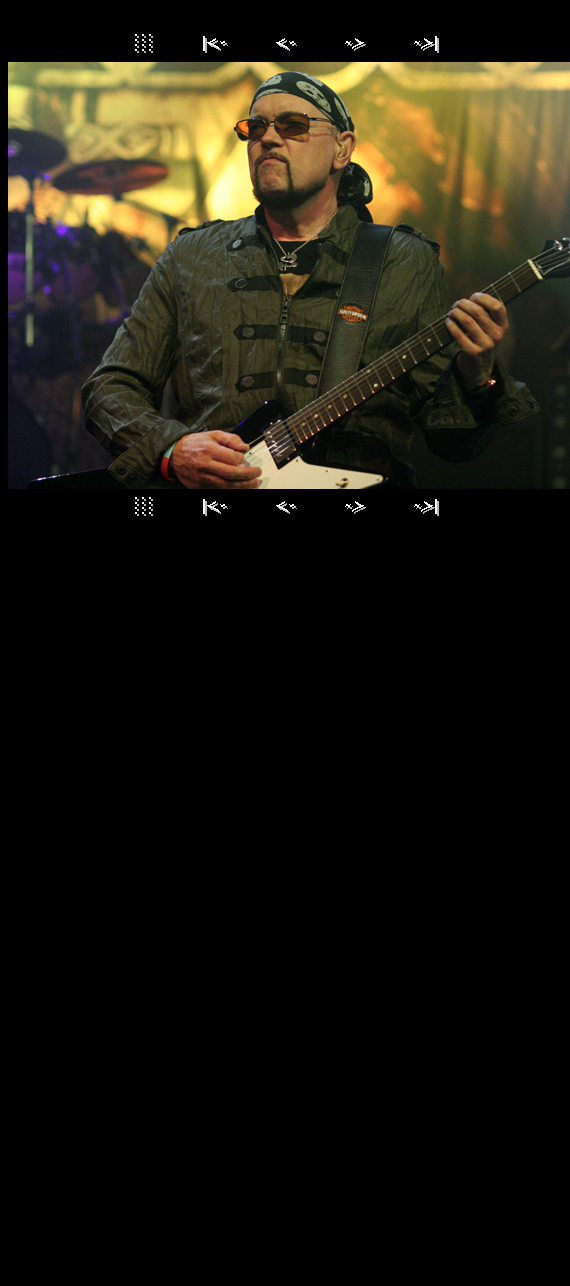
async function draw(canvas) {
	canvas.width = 570;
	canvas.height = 1286;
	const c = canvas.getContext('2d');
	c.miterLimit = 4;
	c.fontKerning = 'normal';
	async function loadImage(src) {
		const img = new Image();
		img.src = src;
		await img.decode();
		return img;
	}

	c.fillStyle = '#000';
	c.fillRect(0, 0, 570, 1286);
	c.drawImage(await loadImage('img1.png'), 135, 34, 18, 19);
	c.drawImage(await loadImage('img2.png'), 203, 36, 25, 17);
	c.drawImage(await loadImage('img3.png'), 276, 38, 21, 13);
	c.drawImage(await loadImage('img4.png'), 345, 38, 21, 13);
	c.drawImage(await loadImage('img5.png'), 414, 36, 25, 17);
	c.drawImage(await loadImage('img6.png'), 8, 62, 562, 427);
	c.drawImage(await loadImage('img1.png'), 135, 497, 18, 19);
	c.drawImage(await loadImage('img2.png'), 203, 499, 25, 17);
	c.drawImage(await loadImage('img3.png'), 276, 501, 21, 13);
	c.drawImage(await loadImage('img4.png'), 345, 501, 21, 13);
	c.drawImage(await loadImage('img5.png'), 414, 499, 25, 17);
}

draw(document.querySelector('canvas'));
